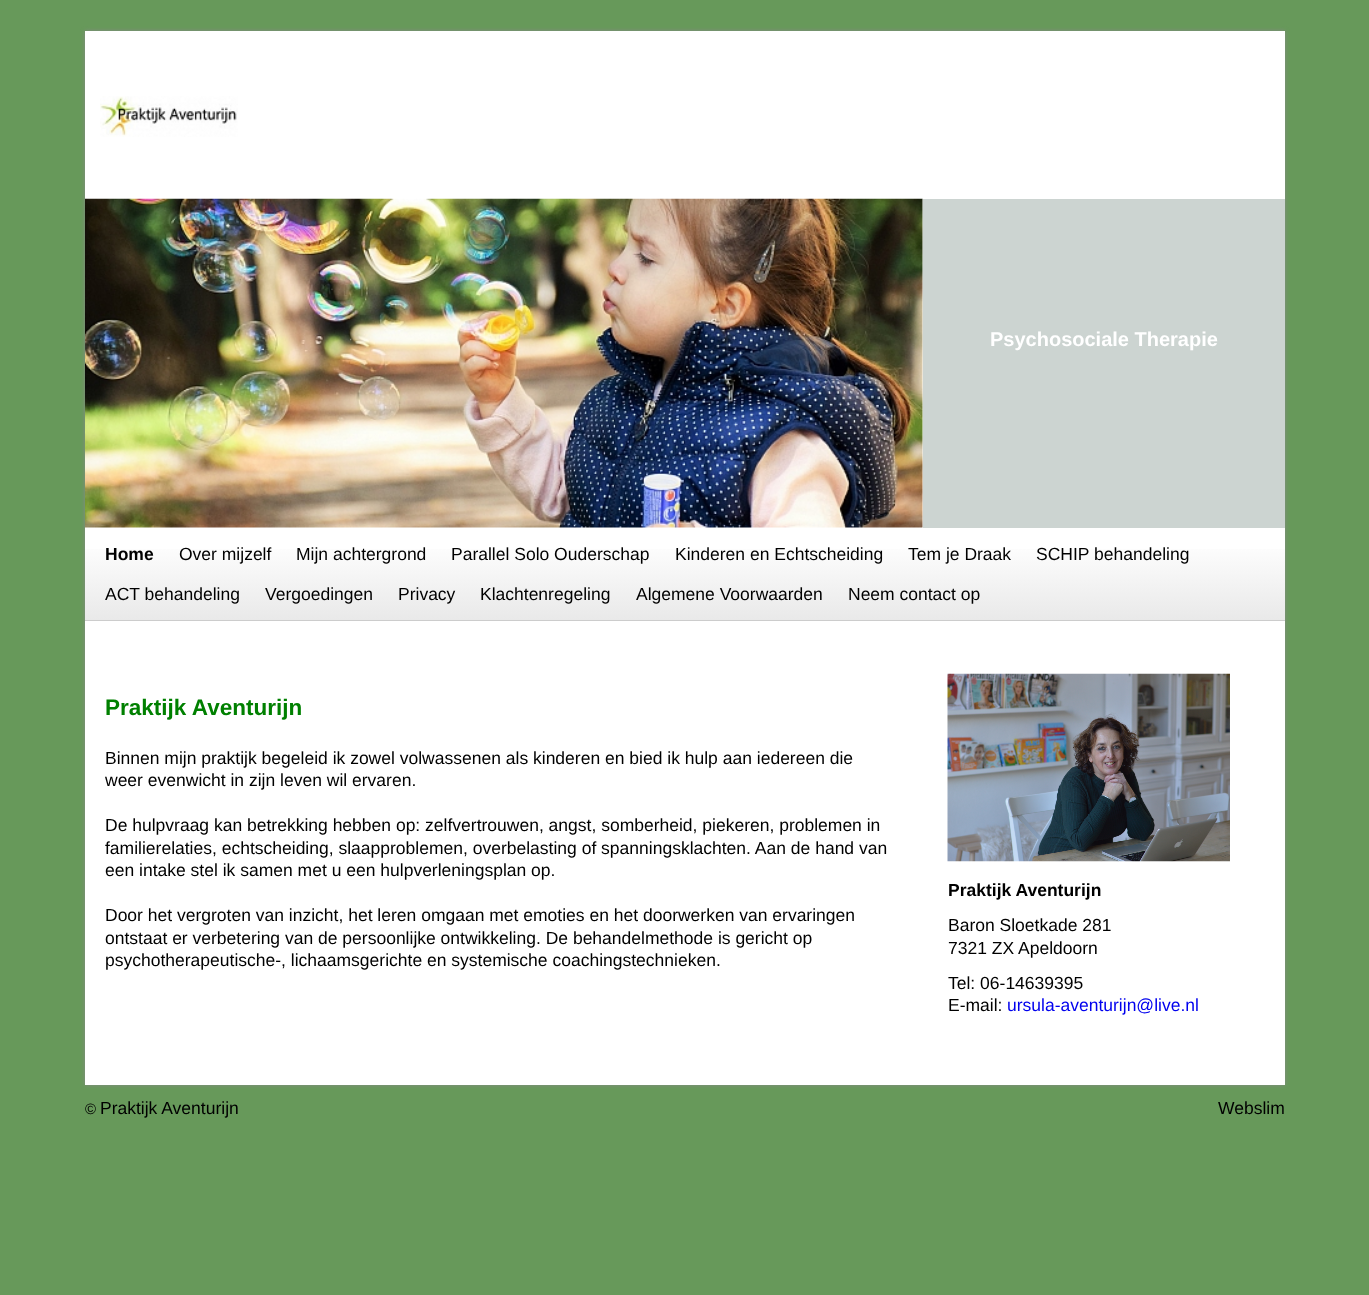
async function draw(canvas) {
	canvas.width = 1369;
	canvas.height = 1295;
	const c = canvas.getContext('2d');
	c.miterLimit = 4;
	c.fontKerning = 'normal';
	async function loadImage(src) {
		const img = new Image();
		img.src = src;
		await img.decode();
		return img;
	}
	let gradient;

	c.fillStyle = '#67995a';
	c.fillRect(0, 0, 1369, 1295);
	c.fillStyle = '#fff';
	c.fillRect(85, 199, 1200, 886);
	c.save();
	c.beginPath();
	c.moveTo(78, 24);
	c.lineTo(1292, 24);
	c.lineTo(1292, 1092);
	c.lineTo(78, 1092);
	c.closePath();
	c.moveTo(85, 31);
	c.lineTo(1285, 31);
	c.lineTo(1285, 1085);
	c.lineTo(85, 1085);
	c.closePath();
	c.clip('evenodd');
	c.fillStyle = '#888';
	c.filter = 'blur(2px)';
	c.beginPath();
	c.rect(85, 31, 1200, 1054);
	c.fill();
	c.filter = 'none';
	c.restore();
	c.fillRect(85, 31, 1200, 168);
	c.drawImage(await loadImage('img1.png'), 100, 96, 138, 41);
	c.drawImage(await loadImage('img2.png'), 85, 198, 838, 330);
	c.fillStyle = '#ccd4d1';
	c.fillRect(923, 199, 362, 329);
	c.font = 'bold 20px Liberation Sans';
	c.fillStyle = '#fff';
	c.fillText('Psychosociale Therapie', 990, 346);
	gradient = c.createLinearGradient(685, 540, 685, 620);
	gradient.addColorStop(0, '#fff');
	gradient.addColorStop(1, '#e9e9e9');
	c.fillStyle = gradient;
	c.fillRect(85, 549, 1200, 71);
	c.font = 'bold 17.5px Liberation Sans';
	c.fillStyle = '#000';
	c.fillText('Home', 105, 560);
	c.font = '17.5px Liberation Sans';
	for (const [text, x, y] of [
		['Over mijzelf', 179, 560],
		['Mijn achtergrond', 296, 560],
		['Parallel Solo Ouderschap', 451, 560],
		['Kinderen en Echtscheiding', 675, 560],
		['Tem je Draak', 908, 560],
		['SCHIP behandeling', 1036, 560],
		['ACT behandeling', 105, 600],
		['Vergoedingen', 265, 600],
		['Privacy', 398, 600],
		['Klachtenregeling', 480, 600],
		['Algemene Voorwaarden', 636, 600],
		['Neem contact op', 848, 600],
	]) {
		c.fillText(text, x, y);
	}
	c.fillStyle = '#ccc';
	c.fillRect(85, 620, 1200, 1);
	c.font = 'bold 22.5px Liberation Sans';
	c.fillStyle = '#008000';
	c.fillText('Praktijk Aventurijn', 105, 715);
	c.font = '17.5px Liberation Sans';
	c.fillStyle = '#000';
	for (const [text, x, y] of [
		['Binnen mijn praktijk begeleid ik zowel volwassenen als kinderen en bied ik hulp aan iedereen die', 105, 764],
		['weer evenwicht in zijn leven wil ervaren.', 105, 786],
		['De hulpvraag kan betrekking hebben op: zelfvertrouwen, angst, somberheid, piekeren, problemen in', 105, 831],
		['familierelaties, echtscheiding, slaapproblemen, overbelasting of spanningsklachten. Aan de hand van', 105, 854],
		['een intake stel ik samen met u een hulpverleningsplan op.', 105, 876],
		['Door het vergroten van inzicht, het leren omgaan met emoties en het doorwerken van ervaringen', 105, 921],
		['ontstaat er verbetering van de persoonlijke ontwikkeling. De behandelmethode is gericht op', 105, 944],
		['psychotherapeutische-, lichaamsgerichte en systemische coachingstechnieken.', 105, 966],
	]) {
		c.fillText(text, x, y);
	}
	c.drawImage(await loadImage('img3.png'), 947, 673, 283, 189);
	c.font = 'bold 17.5px Liberation Sans';
	c.fillText('Praktijk Aventurijn', 948, 896);
	c.font = '17.5px Liberation Sans';
	for (const [text, x, y] of [
		['Baron Sloetkade 281', 948, 931],
		['7321 ZX Apeldoorn', 948, 954],
		['Tel: 06-14639395', 948, 989],
		['E-mail:', 948, 1011],
	]) {
		c.fillText(text, x, y);
	}
	c.fillStyle = '#00e';
	c.fillText('ursula-aventurijn@live.nl', 1007, 1011);
	c.font = '15px Liberation Sans';
	c.fillStyle = '#000';
	c.fillText('©', 85, 1114);
	c.font = '17.5px Liberation Sans';
	c.fillText('Praktijk Aventurijn', 100, 1114);
	c.fillText('Webslim', 1218, 1114);
}

draw(document.querySelector('canvas'));
